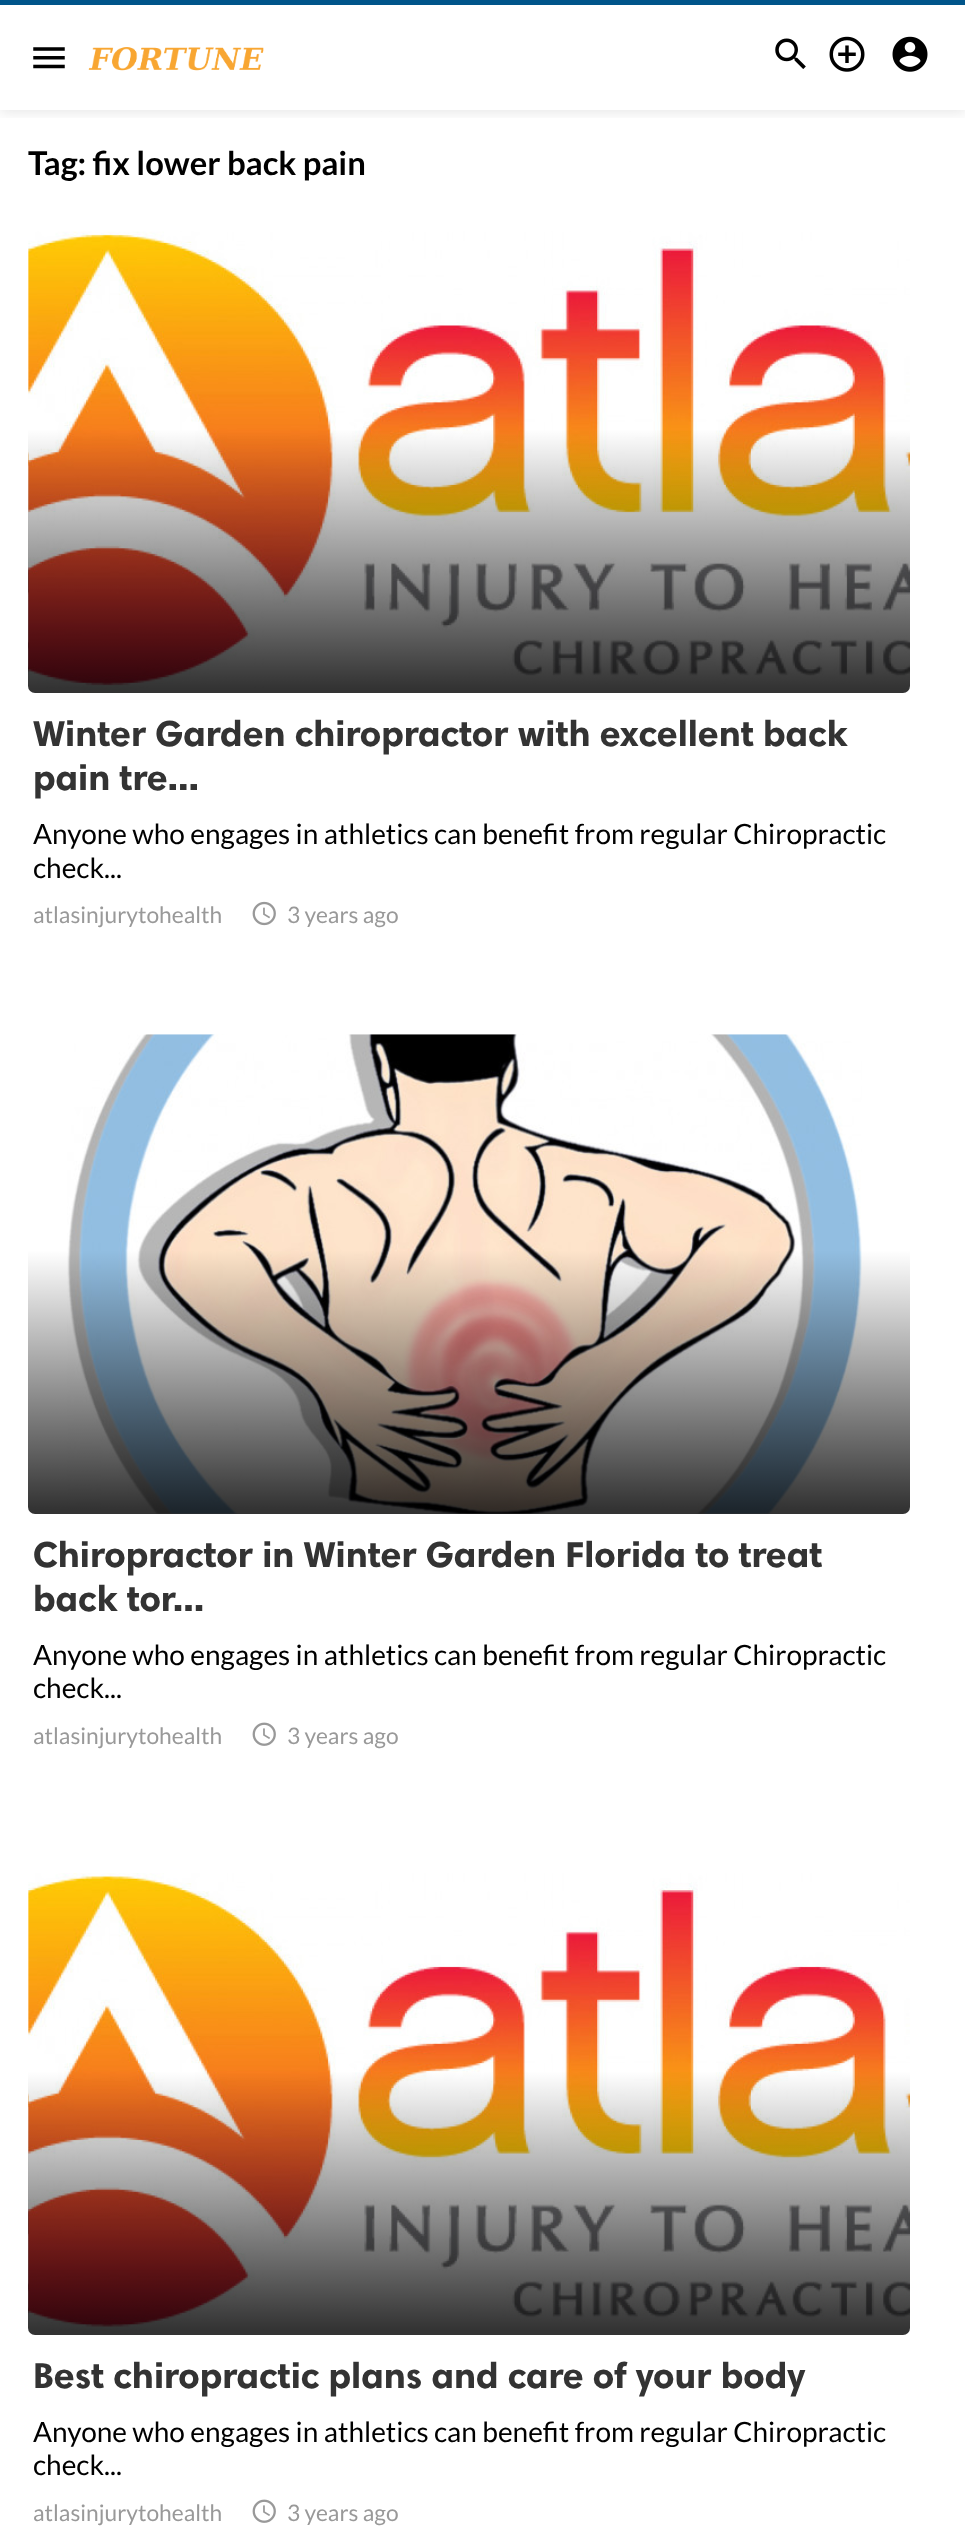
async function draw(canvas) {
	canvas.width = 965;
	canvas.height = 2547;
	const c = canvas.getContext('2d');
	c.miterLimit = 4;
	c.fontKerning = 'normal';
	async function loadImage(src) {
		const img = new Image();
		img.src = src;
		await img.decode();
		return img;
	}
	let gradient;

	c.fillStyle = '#fff';
	c.fillRect(0, 0, 965, 2547);
	c.save();
	c.beginPath();
	c.rect(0, 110, 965, 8);
	c.clip();
	c.fillStyle = '#0000001a';
	c.filter = 'blur(7px)';
	c.beginPath();
	c.rect(0, 2, 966, 110);
	c.fill();
	c.filter = 'none';
	c.restore();
	c.fillStyle = '#00558a';
	c.fillRect(0, 0, 965, 5);
	c.drawImage(await loadImage('img1.png'), 33, 47, 32, 22);
	c.drawImage(await loadImage('img2.png'), 88, 47, 176, 24);
	c.drawImage(await loadImage('img3.png'), 775, 38, 31, 31);
	c.drawImage(await loadImage('img4.png'), 829, 36, 36, 36);
	c.drawImage(await loadImage('img5.png'), 892, 36, 36, 36);
	c.font = 'bold 32.75px Lato';
	c.fillStyle = '#000';
	c.fillText('Tag: fix lower back pain', 28, 175);
	c.drawImage(await loadImage('img6.png'), 28, 231, 882, 462);
	gradient = c.createLinearGradient(469, 213, 469, 693);
	gradient.addColorStop(0.45, '#00000000');
	gradient.addColorStop(0.99, '#000000cc');
	gradient.addColorStop(1, '#000000cc');
	c.fillStyle = gradient;
	c.beginPath();
	c.roundRect(28, 214, 882, 479, 7);
	c.fill();
	c.font = 'bold 36.4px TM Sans';
	c.fillStyle = '#333';
	c.fillText('Winter Garden chiropractor with excellent back', 33, 746);
	c.fillText('pain tre...', 33, 790);
	c.font = '28px Lato';
	c.fillStyle = '#000';
	c.fillText('Anyone who engages in athletics can benefit from regular Chiropractic', 33, 844);
	c.fillText('check...', 33, 878);
	c.font = '22.75px Lato';
	c.fillStyle = '#999';
	c.fillText('atlasinjurytohealth', 33, 923);
	c.drawImage(await loadImage('img7.png'), 252, 901, 24, 25);
	c.fillText('3 years ago', 287, 923);
	c.drawImage(await loadImage('img8.png'), 67, 1034, 795, 480);
	gradient = c.createLinearGradient(469, 1034, 469, 1514);
	gradient.addColorStop(0.45, '#00000000');
	gradient.addColorStop(0.99, '#000000cc');
	gradient.addColorStop(1, '#000000cc');
	c.fillStyle = gradient;
	c.beginPath();
	c.roundRect(28, 1034, 882, 480, 7);
	c.fill();
	c.font = 'bold 36.4px TM Sans';
	c.fillStyle = '#333';
	c.fillText('Chiropractor in Winter Garden Florida to treat', 33, 1567);
	c.fillText('back tor...', 33, 1611);
	c.font = '28px Lato';
	c.fillStyle = '#000';
	c.fillText('Anyone who engages in athletics can benefit from regular Chiropractic', 33, 1665);
	c.fillText('check...', 33, 1698);
	c.font = '22.75px Lato';
	c.fillStyle = '#999';
	c.fillText('atlasinjurytohealth', 33, 1744);
	c.drawImage(await loadImage('img9.png'), 252, 1722, 24, 24);
	c.fillText('3 years ago', 287, 1744);
	c.drawImage(await loadImage('img10.png'), 28, 1873, 882, 461);
	gradient = c.createLinearGradient(469, 1855, 469, 2335);
	gradient.addColorStop(0.45, '#00000000');
	gradient.addColorStop(0.99, '#000000cc');
	gradient.addColorStop(1, '#000000cc');
	c.fillStyle = gradient;
	c.beginPath();
	c.roundRect(28, 1855, 882, 480, 7);
	c.fill();
	c.font = 'bold 36.4px TM Sans';
	c.fillStyle = '#333';
	c.fillText('Best chiropractic plans and care of your body', 33, 2388);
	c.font = '28px Lato';
	c.fillStyle = '#000';
	c.fillText('Anyone who engages in athletics can benefit from regular Chiropractic', 33, 2442);
	c.fillText('check...', 33, 2475);
	c.font = '22.75px Lato';
	c.fillStyle = '#999';
	c.fillText('atlasinjurytohealth', 33, 2521);
	c.drawImage(await loadImage('img9.png'), 252, 2499, 24, 24);
	c.fillText('3 years ago', 287, 2521);
}

draw(document.querySelector('canvas'));
